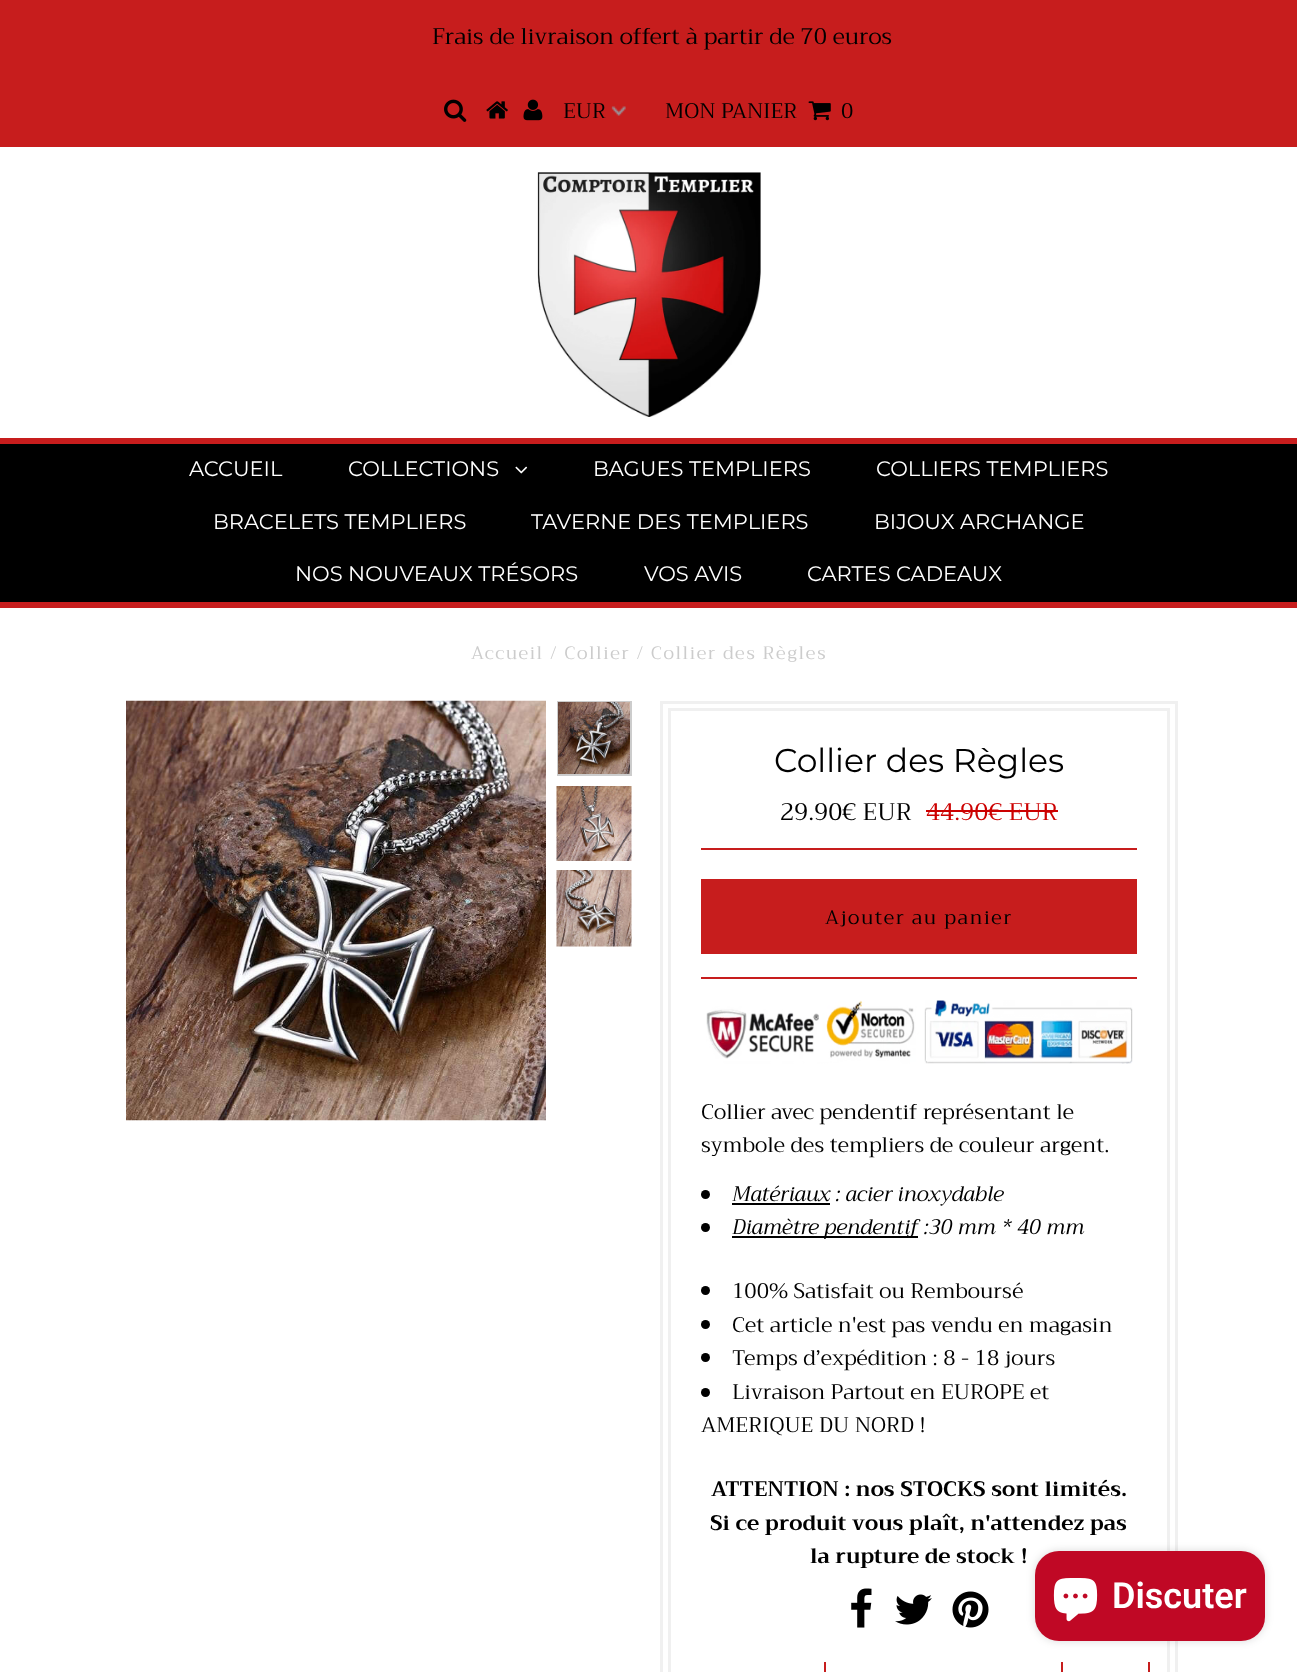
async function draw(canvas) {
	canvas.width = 1297;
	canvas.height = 1672;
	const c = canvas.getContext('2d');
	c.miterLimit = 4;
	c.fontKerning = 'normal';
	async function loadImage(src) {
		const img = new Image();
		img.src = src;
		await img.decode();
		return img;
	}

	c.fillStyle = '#fff';
	c.fillRect(0, 0, 1297, 1672);
	c.fillStyle = '#c71d1d';
	c.fillRect(0, 0, 1297, 147);
	c.font = '22.5px Trirong';
	c.fillStyle = '#000';
	c.fillText('Frais de livraison offert à partir de 70 euros', 432, 44);
	c.drawImage(await loadImage('img1.png'), 444, 99, 23, 23);
	c.drawImage(await loadImage('img2.png'), 486, 101, 22, 18);
	c.drawImage(await loadImage('img3.png'), 523, 99, 20, 22);
	c.drawImage(await loadImage('img4.png'), 611, 106, 15, 10);
	c.font = '21px Trirong';
	c.fillText('EUR', 563, 118);
	c.fillText('MON PANIER', 665, 118);
	c.drawImage(await loadImage('img5.png'), 808, 101, 23, 20);
	c.fillText('0', 841, 118);
	c.drawImage(await loadImage('img6.png'), 537, 172, 224, 245);
	for (const [x, y, w, h, color] of [
		[0, 444, 1297, 158, '#000'],
		[0, 438, 1297, 6, '#c71d1d'],
		[0, 602, 1297, 6, '#c71d1d'],
	]) {
		c.fillStyle = color;
		c.fillRect(x, y, w, h);
	}
	c.font = '21px Montserrat';
	c.fillStyle = '#fff';
	c.fillText('ACCUEIL', 189, 476);
	c.fillText('COLLECTIONS', 348, 476);
	c.drawImage(await loadImage('img7.png'), 515, 466, 13, 8);
	for (const [text, x, y] of [
		['BAGUES TEMPLIERS', 593, 476],
		['COLLIERS TEMPLIERS', 876, 476],
		['BRACELETS TEMPLIERS', 213, 529],
		['TAVERNE DES TEMPLIERS', 531, 529],
		['BIJOUX ARCHANGE', 874, 529],
		['NOS NOUVEAUX TRÉSORS', 295, 581],
		['VOS AVIS', 644, 581],
		['CARTES CADEAUX', 807, 581],
	]) {
		c.fillText(text, x, y);
	}
	c.letterSpacing = '1.5px';
	c.font = '18px Trirong';
	c.fillStyle = '#ccc';
	c.fillText('Accueil / Collier / Collier des Règles', 471, 659);
	c.drawImage(await loadImage('img8.png'), 126, 700, 420, 421);
	c.strokeStyle = '#ccc';
	c.lineWidth = 2;
	c.strokeRect(558, 702, 73, 73);
	c.drawImage(await loadImage('img9.png'), 558, 702, 72, 72);
	c.drawImage(await loadImage('img10.png'), 556, 786, 76, 75);
	c.drawImage(await loadImage('img11.png'), 556, 870, 76, 77);
	c.strokeStyle = '#f0f0f0';
	c.lineWidth = 3;
	c.strokeRect(661.5, 702.5, 515, 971);
	c.strokeRect(669.5, 709.5, 499, 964);
	c.letterSpacing = '0px';
	c.font = '33px Montserrat';
	c.fillStyle = '#000';
	c.fillText('Collier des Règles', 774, 772);
	c.fillStyle = '#c71d1d';
	c.fillRect(701, 977, 436, 2);
	c.fillRect(701, 848, 436, 2);
	c.font = '24px Trirong';
	c.fillStyle = '#000';
	c.fillText('29.90€ EUR', 780, 820);
	c.fillStyle = '#c00';
	c.fillText('44.90€ EUR', 926, 820);
	c.fillRect(926, 810, 132, 2);
	c.fillStyle = '#c71d1d';
	c.fillRect(701, 879, 436, 75);
	c.letterSpacing = '1.5px';
	c.font = '19.5px Trirong';
	c.fillStyle = '#000';
	c.fillText('Ajouter au panier', 825, 924);
	c.drawImage(await loadImage('img12.png'), 706, 1000, 427, 64);
	c.letterSpacing = '0px';
	c.font = '21px Trirong';
	c.fillText('Collier avec pendentif représentant le', 701, 1119);
	c.fillText('symbole des templiers de couleur argent.', 701, 1152);
	c.beginPath();
	c.arc(705.5, 1194.5, 4.5, 0, 2 * Math.PI);
	c.fill();
	c.fillRect(732, 1203, 98, 2);
	c.font = 'italic 21px Trirong';
	c.fillText('Matériaux : acier inoxydable', 732, 1201);
	c.beginPath();
	c.arc(705.5, 1227.5, 4.5, 0, 2 * Math.PI);
	c.fill();
	c.fillRect(732, 1236, 186, 2);
	c.fillText('Diamètre pendentif :30 mm * 40 mm', 732, 1234);
	c.beginPath();
	c.arc(705.5, 1290.5, 4.5, 0, 2 * Math.PI);
	c.fill();
	c.font = '21px Trirong';
	c.fillText('100% Satisfait ou Remboursé', 732, 1298);
	c.beginPath();
	c.arc(705.5, 1324.5, 4.5, 0, 2 * Math.PI);
	c.fill();
	c.fillText('Cet article n\'est pas vendu en magasin', 732, 1332);
	c.beginPath();
	c.arc(705.5, 1357.5, 4.5, 0, 2 * Math.PI);
	c.fill();
	c.fillText('Temps d’expédition : 8 - 18 jours', 732, 1365);
	c.beginPath();
	c.arc(705.5, 1392.5, 4.5, 0, 2 * Math.PI);
	c.fill();
	c.fillText('Livraison Partout en EUROPE et', 732, 1399);
	c.fillText('AMERIQUE DU NORD !', 701, 1432);
	c.font = 'bold 21px Trirong';
	for (const [text, x, y] of [
		['ATTENTION : nos STOCKS sont limités.', 711, 1496],
		['Si ce produit vous plaît, n\'attendez pas', 710, 1530],
		['la rupture de stock !', 810, 1563],
	]) {
		c.fillText(text, x, y);
	}
	c.drawImage(await loadImage('img13.png'), 851, 1588, 21, 40);
	c.drawImage(await loadImage('img14.png'), 895, 1594, 37, 31);
	c.drawImage(await loadImage('img15.png'), 952, 1591, 37, 37);
	for (const [x, y, w, h, color] of [
		[824, 1662, 2, 10, '#c71d1d'],
		[1061, 1662, 2, 10, '#c71d1d'],
		[1148, 1662, 2, 10, '#c71d1d'],
	]) {
		c.fillStyle = color;
		c.fillRect(x, y, w, h);
	}
	c.fillStyle = '#00000026';
	c.filter = 'blur(4px)';
	c.beginPath();
	c.roundRect(1035, 1551, 230, 90, 24);
	c.fill();
	c.filter = 'none';
	c.fillStyle = '#c00825';
	c.beginPath();
	c.roundRect(1035, 1551, 230, 90, 24);
	c.fill();
	c.drawImage(await loadImage('img16.png'), 1053, 1578, 45, 44);
	c.font = '600 36px Roboto';
	c.fillStyle = '#fff';
	c.fillText('Discuter', 1112, 1608);
}

draw(document.querySelector('canvas'));
